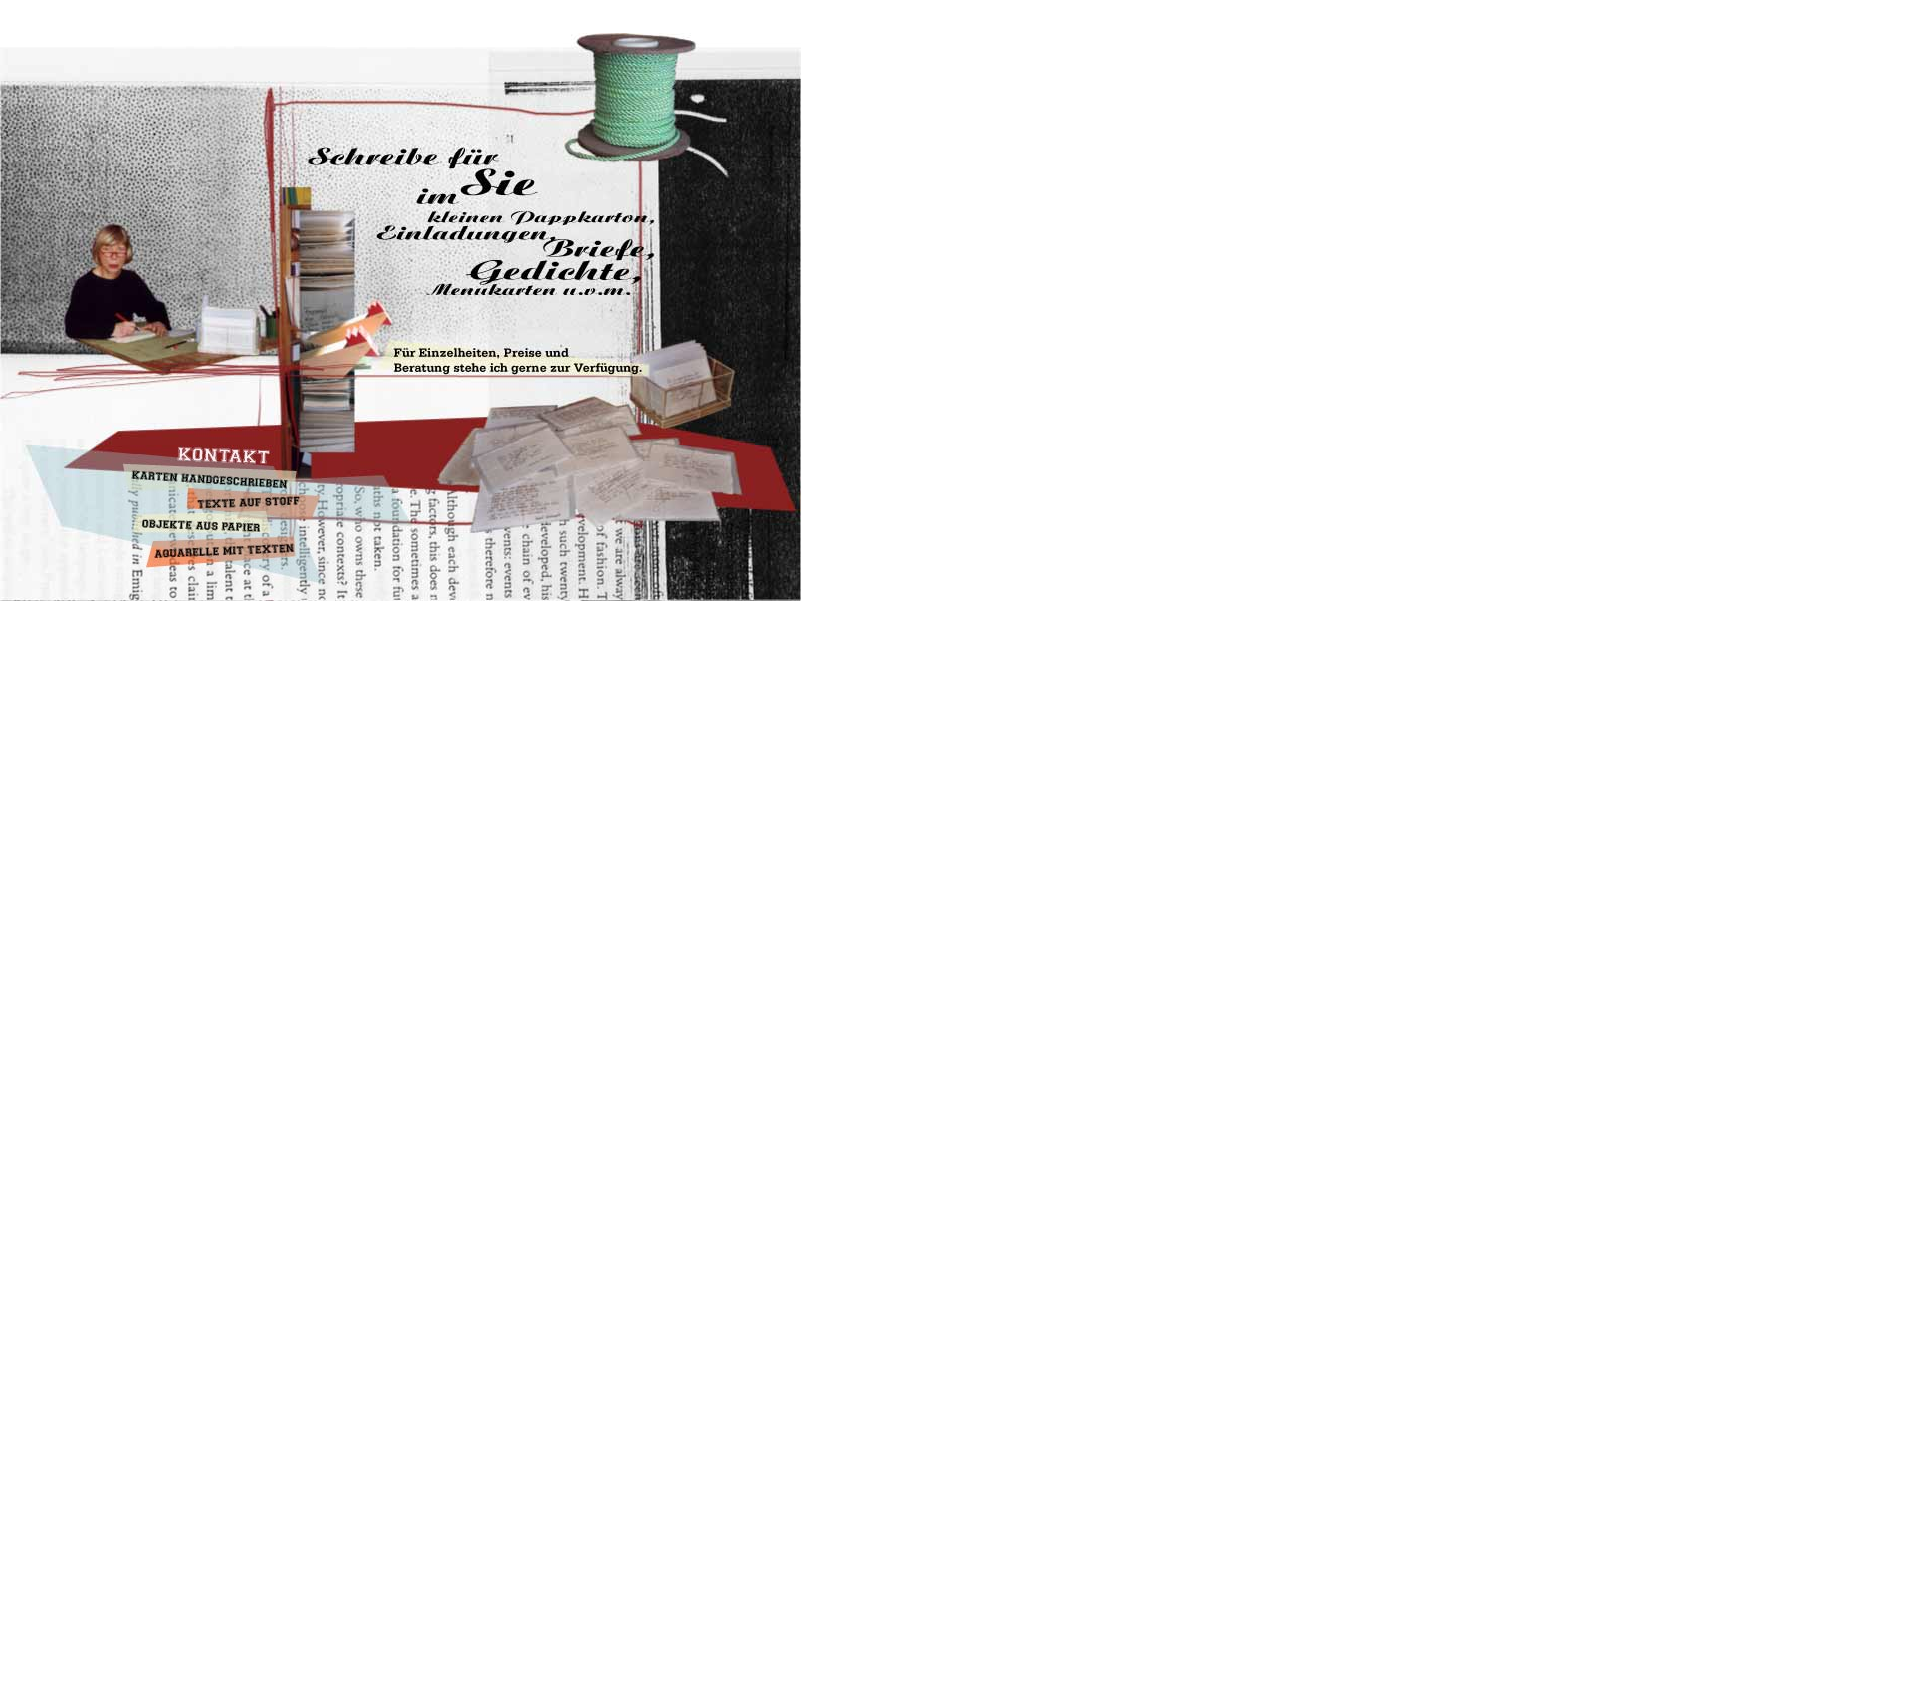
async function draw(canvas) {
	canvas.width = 1916;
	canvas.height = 1695;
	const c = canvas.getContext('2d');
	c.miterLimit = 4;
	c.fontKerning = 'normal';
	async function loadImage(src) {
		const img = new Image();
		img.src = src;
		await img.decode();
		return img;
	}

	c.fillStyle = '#fff';
	c.fillRect(0, 0, 1916, 1695);
	c.drawImage(await loadImage('img1.png'), 0, 47, 114, 120);
	c.drawImage(await loadImage('img2.png'), 114, 46, 213, 121);
	c.drawImage(await loadImage('img3.png'), 327, 47, 236, 120);
	c.drawImage(await loadImage('img4.png'), 563, 33, 238, 134);
	c.drawImage(await loadImage('img5.png'), 0, 167, 114, 278);
	c.drawImage(await loadImage('img6.png'), 114, 167, 213, 278);
	c.drawImage(await loadImage('img7.png'), 327, 167, 236, 278);
	c.drawImage(await loadImage('img8.png'), 563, 167, 238, 278);
	c.drawImage(await loadImage('img9.png'), 0, 445, 114, 156);
	c.drawImage(await loadImage('img10.png'), 114, 445, 213, 156);
	c.drawImage(await loadImage('img11.png'), 327, 445, 236, 156);
	c.drawImage(await loadImage('img12.png'), 563, 445, 238, 156);
}

draw(document.querySelector('canvas'));
